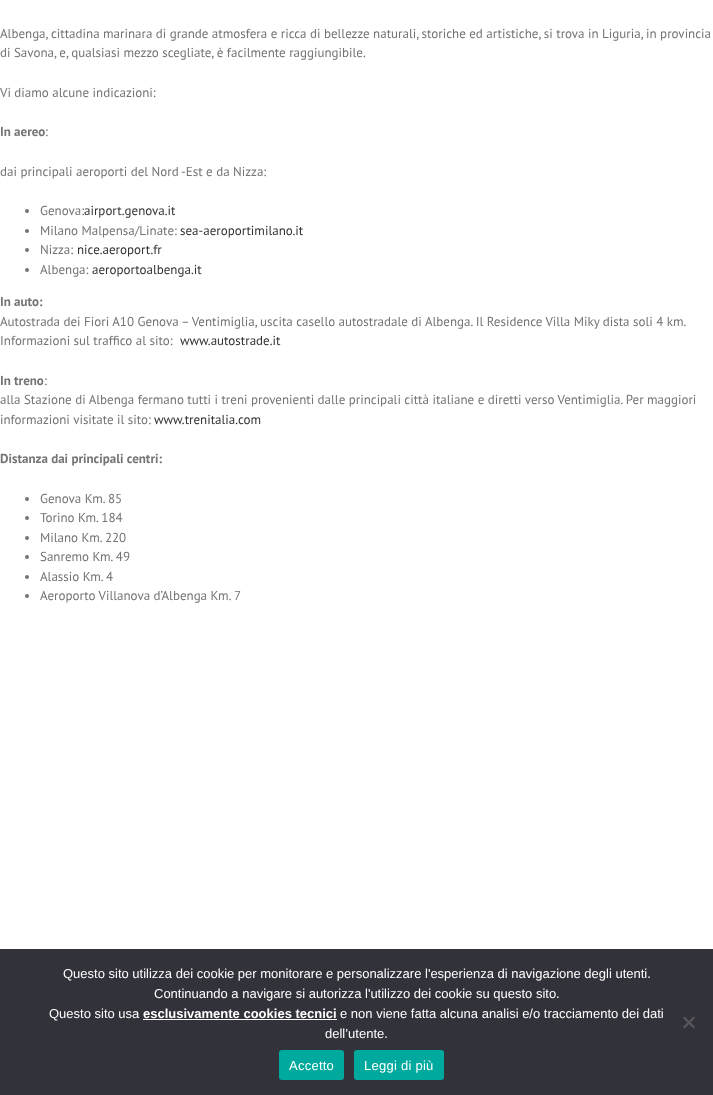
async function draw(canvas) {
	canvas.width = 713;
	canvas.height = 1095;
	const c = canvas.getContext('2d');
	c.miterLimit = 4;
	c.fontKerning = 'normal';

	c.fillStyle = '#fff';
	c.fillRect(0, 0, 713, 1095);
	c.font = '13px PT Sans';
	c.fillStyle = '#747474';
	for (const [text, x, y] of [
		['Albenga, cittadina marinara di grande atmosfera e ricca di bellezze naturali, storiche ed artistiche, si trova in Liguria, in provincia', 0, 38],
		['di Savona, e, qualsiasi mezzo scegliate, è facilmente raggiungibile.', 0, 57],
		['Vi diamo alcune indicazioni:', 0, 97],
	]) {
		c.fillText(text, x, y);
	}
	c.font = 'bold 13px PT Sans';
	c.fillText('In aereo', 0, 136);
	c.font = '13px PT Sans';
	c.fillText(':', 45, 136);
	c.fillText('dai principali aeroporti del Nord -Est e da Nizza:', 0, 176);
	c.beginPath();
	c.arc(27, 211, 2, 0, 2 * Math.PI);
	c.fill();
	c.fillText('Genova:', 40, 215);
	c.fillStyle = '#333';
	c.fillText('airport.genova.it', 84, 215);
	c.fillStyle = '#747474';
	c.beginPath();
	c.arc(27, 231, 2, 0, 2 * Math.PI);
	c.fill();
	c.fillText('Milano Malpensa/Linate:', 40, 235);
	c.fillStyle = '#333';
	c.fillText('sea-aeroportimilano.it', 180, 235);
	c.fillStyle = '#747474';
	c.beginPath();
	c.arc(27, 250, 2, 0, 2 * Math.PI);
	c.fill();
	c.fillText('Nizza:', 40, 254);
	c.fillStyle = '#333';
	c.fillText('nice.aeroport.fr', 77, 254);
	c.fillStyle = '#747474';
	c.beginPath();
	c.arc(27, 270, 2, 0, 2 * Math.PI);
	c.fill();
	c.fillText('Albenga:', 40, 274);
	c.fillStyle = '#333';
	c.fillText('aeroportoalbenga.it', 92, 274);
	c.font = 'bold 13px PT Sans';
	c.fillStyle = '#747474';
	c.fillText('In auto:', 0, 306);
	c.font = '13px PT Sans';
	c.fillText('Autostrada dei Fiori A10 Genova – Ventimiglia, uscita casello autostradale di Albenga. Il Residence Villa Miky dista soli 4 km.', 0, 326);
	c.fillText('Informazioni sul traffico al sito:', 0, 345);
	c.fillStyle = '#333';
	c.fillText('www.autostrade.it', 180, 345);
	c.font = 'bold 13px PT Sans';
	c.fillStyle = '#747474';
	c.fillText('In treno', 0, 385);
	c.font = '13px PT Sans';
	for (const [text, x, y] of [
		[':', 44, 385],
		['alla Stazione di Albenga fermano tutti i treni provenienti dalle principali città italiane e diretti verso Ventimiglia. Per maggiori', 0, 404],
		['informazioni visitate il sito:', 0, 424],
	]) {
		c.fillText(text, x, y);
	}
	c.fillStyle = '#333';
	c.fillText('www.trenitalia.com', 154, 424);
	c.font = 'bold 13px PT Sans';
	c.fillStyle = '#747474';
	c.fillText('Distanza dai principali centri:', 0, 463);
	c.beginPath();
	c.arc(27, 499, 2, 0, 2 * Math.PI);
	c.fill();
	c.font = '13px PT Sans';
	c.fillText('Genova Km. 85', 40, 503);
	c.beginPath();
	c.arc(27, 518, 2, 0, 2 * Math.PI);
	c.fill();
	c.fillText('Torino Km. 184', 40, 522);
	c.beginPath();
	c.arc(27, 538, 2, 0, 2 * Math.PI);
	c.fill();
	c.fillText('Milano Km. 220', 40, 542);
	c.beginPath();
	c.arc(27, 557, 2, 0, 2 * Math.PI);
	c.fill();
	c.fillText('Sanremo Km. 49', 40, 561);
	c.beginPath();
	c.arc(27, 577, 2, 0, 2 * Math.PI);
	c.fill();
	c.fillText('Alassio Km. 4', 40, 581);
	c.beginPath();
	c.arc(27, 596, 2, 0, 2 * Math.PI);
	c.fill();
	c.fillText('Aeroporto Villanova d’Albenga Km. 7', 40, 600);
	c.fillStyle = '#32323a';
	c.fillRect(0, 949, 713, 146);
	c.font = '13px Liberation Sans';
	c.fillStyle = '#fff';
	for (const [text, x, y] of [
		['Questo sito utilizza dei cookie per monitorare e personalizzare l\'esperienza di navigazione degli utenti.', 63, 978],
		['Continuando a navigare si autorizza l\'utilizzo dei cookie su questo sito.', 154, 998],
		['Questo sito usa', 49, 1018],
	]) {
		c.fillText(text, x, y);
	}
	c.font = 'bold 13px Liberation Sans';
	c.fillText('esclusivamente cookies tecnici', 143, 1018);
	c.fillRect(143, 1019, 194, 1);
	c.font = '13px Liberation Sans';
	c.fillText('e non viene fatta alcuna analisi e/o tracciamento dei dati', 340, 1018);
	c.fillText('dell’utente.', 325, 1038);
	c.fillStyle = '#59595d';
	c.beginPath();
	c.moveTo(693.5, 1016.5);
	c.lineTo(695, 1018);
	c.lineTo(684.5, 1028.5);
	c.lineTo(683, 1027);
	c.closePath();
	c.fill();
	c.beginPath();
	c.moveTo(683, 1018);
	c.lineTo(684.5, 1016.5);
	c.lineTo(695, 1027);
	c.lineTo(693.5, 1028.5);
	c.closePath();
	c.fill();
	c.fillStyle = '#00a99d';
	c.beginPath();
	c.roundRect(279, 1050, 65, 30, 3);
	c.fill();
	c.letterSpacing = '0.25px';
	c.fillStyle = '#fff';
	c.fillText('Accetto', 289, 1070);
	c.fillStyle = '#00a99d';
	c.beginPath();
	c.roundRect(354, 1050, 90, 30, 3);
	c.fill();
	c.fillStyle = '#fff';
	c.fillText('Leggi di più', 364, 1070);
}

draw(document.querySelector('canvas'));
